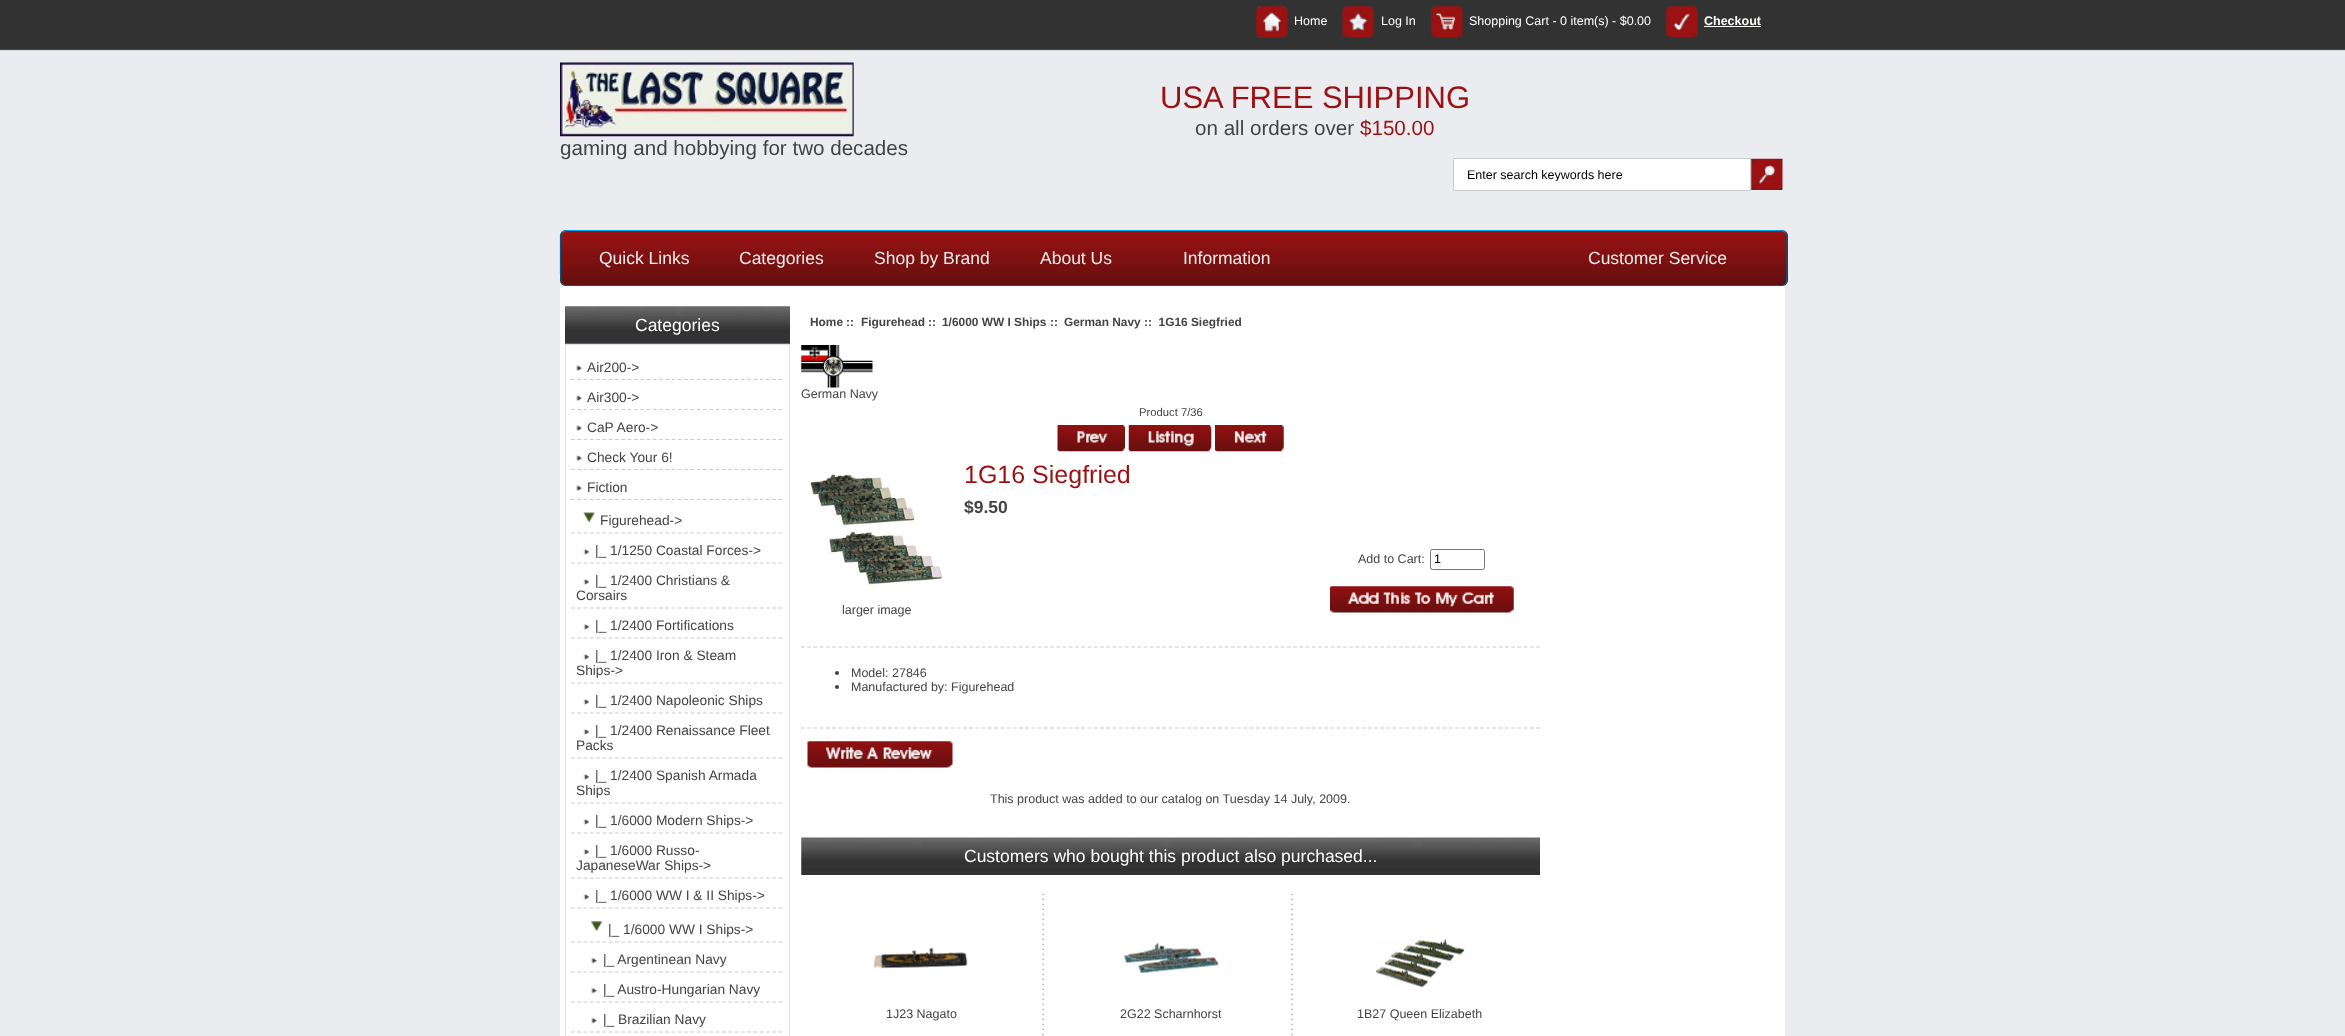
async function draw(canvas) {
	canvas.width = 2345;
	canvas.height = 1036;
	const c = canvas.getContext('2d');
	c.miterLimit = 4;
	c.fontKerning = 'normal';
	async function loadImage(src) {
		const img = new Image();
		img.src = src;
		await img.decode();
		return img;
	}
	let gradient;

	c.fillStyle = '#ebecf0';
	c.fillRect(0, 0, 2345, 1036);
	c.drawImage(await loadImage('img1.png'), 0, 0, 2345, 51);
	c.drawImage(await loadImage('img2.png'), 1256, 6, 32, 32);
	c.font = '12.5px Liberation Sans';
	c.fillStyle = '#fffffd';
	c.fillText('Home', 1294, 25);
	c.drawImage(await loadImage('img3.png'), 1342, 6, 32, 32);
	c.fillText('Log In', 1381, 25);
	c.drawImage(await loadImage('img4.png'), 1431, 6, 32, 32);
	c.fillText('Shopping Cart - 0 item(s) - $0.00', 1469, 25);
	c.drawImage(await loadImage('img5.png'), 1666, 6, 32, 32);
	c.font = 'bold 12.5px Liberation Sans';
	c.fillText('Checkout', 1704, 25);
	c.fillRect(1704, 26, 57, 1);
	c.drawImage(await loadImage('img6.png'), 560, 62, 294, 75);
	c.font = '20.6px Liberation Sans';
	c.fillStyle = '#444443';
	c.fillText('gaming and hobbying for two decades', 560, 155);
	c.font = '31px Liberation Sans';
	c.fillStyle = '#9a1213';
	c.fillText('USA FREE SHIPPING', 1160, 108);
	c.font = '20.6px Liberation Sans';
	c.fillStyle = '#444443';
	c.fillText('on all orders over', 1195, 135);
	c.fillStyle = '#9a1213';
	c.fillText('$150.00', 1360, 135);
	c.fillStyle = '#fff';
	c.beginPath();
	c.rect(1453.5, 158.5, 297, 32);
	c.fill();
	c.strokeStyle = '#ccc';
	c.stroke();
	c.save();
	c.beginPath();
	c.rect(1466, 168, 282, 13);
	c.clip();
	c.font = '12.5px Liberation Sans';
	c.fillStyle = '#000';
	c.fillText('Enter search keywords here', 1467, 179);
	c.restore();
	c.drawImage(await loadImage('img7.png'), 1751, 158, 32, 32);
	c.save();
	c.beginPath();
	c.roundRect(560, 230, 1228, 56, 6);
	c.clip();
	gradient = c.createLinearGradient(561, 178, 561, 231);
	gradient.addColorStop(0, '#9a1212');
	gradient.addColorStop(1, '#640f0f');
	c.fillStyle = gradient;
	c.fillRect(560, 230, 1228, 1);
	gradient = c.createLinearGradient(561, 231, 561, 285);
	gradient.addColorStop(0, '#9a1212');
	gradient.addColorStop(1, '#640f0f');
	c.fillStyle = gradient;
	c.fillRect(560, 231, 1228, 54);
	gradient = c.createLinearGradient(561, 285, 561, 339);
	gradient.addColorStop(0, '#9a1212');
	gradient.addColorStop(1, '#640f0f');
	c.fillStyle = gradient;
	c.fillRect(560, 285, 1228, 1);
	c.restore();
	c.beginPath();
	c.moveTo(562.5, 232.5);
	c.bezierCurveTo(563.5, 231, 565, 230.5, 566, 230.5);
	c.lineTo(1781, 230.5);
	c.bezierCurveTo(1782.5, 230.5, 1784, 231, 1785, 232.5);
	c.strokeStyle = '#029feb';
	c.lineWidth = 1.2;
	c.stroke();
	c.fillRect(560, 286, 1225, 750);
	c.beginPath();
	c.moveTo(1785, 232.5);
	c.lineTo(1787, 235);
	c.lineTo(1787, 272.5);
	c.lineTo(1786.5, 282);
	c.bezierCurveTo(1785.5, 284, 1783.5, 285.5, 1781, 285.5);
	c.lineTo(566, 285.5);
	c.bezierCurveTo(564, 285.5, 562, 284, 561, 282);
	c.lineTo(560.5, 272.5);
	c.lineTo(560.5, 235);
	c.lineTo(562.5, 232.5);
	c.strokeStyle = '#015b86';
	c.stroke();
	c.font = '17.5px Liberation Sans';
	c.fillStyle = '#eeeeed';
	for (const [text, x, y] of [
		['Quick Links', 599, 264],
		['Categories', 739, 264],
		['Shop by Brand', 874, 264],
		['About Us', 1040, 264],
		['Information', 1183, 264],
		['Customer Service', 1588, 264],
	]) {
		c.fillText(text, x, y);
	}
	c.drawImage(await loadImage('img8.png'), 565, 306, 225, 38);
	c.fillStyle = '#fffffd';
	c.fillText('Categories', 635, 331);
	c.strokeStyle = '#e1e1e9';
	c.lineWidth = 1;
	c.strokeRect(565.5, 344.5, 224, 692);
	c.beginPath();
	c.moveTo(571, 379.5);
	c.lineTo(782.5, 379.5);
	c.strokeStyle = '#ccc';
	c.lineWidth = 1.2;
	c.setLineDash([3.75, 2.54]);
	c.stroke();
	c.drawImage(await loadImage('img9.png'), 576, 365, 6, 7);
	c.font = '13.75px Liberation Sans';
	c.fillStyle = '#444443';
	c.fillText('Air200->', 587, 372);
	c.fillStyle = '#fff';
	c.fillRect(571, 380, 212, 1);
	c.beginPath();
	c.moveTo(571, 409.5);
	c.lineTo(782.5, 409.5);
	c.stroke();
	c.drawImage(await loadImage('img9.png'), 576, 395, 6, 7);
	c.fillStyle = '#444443';
	c.fillText('Air300->', 587, 402);
	c.fillStyle = '#fff';
	c.fillRect(571, 410, 212, 1);
	c.beginPath();
	c.moveTo(571, 439.5);
	c.lineTo(782.5, 439.5);
	c.stroke();
	c.drawImage(await loadImage('img9.png'), 576, 425, 6, 7);
	c.fillStyle = '#444443';
	c.fillText('CaP Aero->', 587, 432);
	c.fillStyle = '#fff';
	c.fillRect(571, 440, 212, 1);
	c.beginPath();
	c.moveTo(571, 469.5);
	c.lineTo(782.5, 469.5);
	c.stroke();
	c.drawImage(await loadImage('img9.png'), 576, 455, 6, 7);
	c.fillStyle = '#444443';
	c.fillText('Check Your 6!', 587, 462);
	c.fillStyle = '#fff';
	c.fillRect(571, 470, 212, 1);
	c.beginPath();
	c.moveTo(571, 499.5);
	c.lineTo(782.5, 499.5);
	c.stroke();
	c.drawImage(await loadImage('img9.png'), 576, 485, 6, 7);
	c.fillStyle = '#444443';
	c.fillText('Fiction', 587, 492);
	c.fillStyle = '#fff';
	c.fillRect(571, 500, 212, 1);
	c.beginPath();
	c.moveTo(571, 533);
	c.lineTo(782.5, 533);
	c.stroke();
	c.drawImage(await loadImage('img10.png'), 583, 512, 13, 11);
	c.fillStyle = '#444443';
	c.fillText('Figurehead->', 600, 525);
	c.beginPath();
	c.moveTo(571, 563);
	c.lineTo(782.5, 563);
	c.stroke();
	c.drawImage(await loadImage('img11.png'), 583, 548, 6, 7);
	c.fillText('|_ 1/1250 Coastal Forces->', 595, 555);
	c.beginPath();
	c.moveTo(571, 608);
	c.lineTo(782.5, 608);
	c.stroke();
	c.drawImage(await loadImage('img11.png'), 583, 578, 6, 7);
	c.fillText('|_ 1/2400 Christians &', 595, 585);
	c.fillText('Corsairs', 576, 600);
	c.beginPath();
	c.moveTo(571, 638);
	c.lineTo(782.5, 638);
	c.stroke();
	c.drawImage(await loadImage('img11.png'), 583, 623, 6, 7);
	c.fillText('|_ 1/2400 Fortifications', 595, 630);
	c.beginPath();
	c.moveTo(571, 683);
	c.lineTo(782.5, 683);
	c.stroke();
	c.drawImage(await loadImage('img11.png'), 583, 653, 6, 7);
	c.fillText('|_ 1/2400 Iron & Steam', 595, 660);
	c.fillText('Ships->', 576, 675);
	c.beginPath();
	c.moveTo(571, 713);
	c.lineTo(782.5, 713);
	c.stroke();
	c.drawImage(await loadImage('img11.png'), 583, 698, 6, 7);
	c.fillText('|_ 1/2400 Napoleonic Ships', 595, 705);
	c.beginPath();
	c.moveTo(571, 758);
	c.lineTo(782.5, 758);
	c.stroke();
	c.drawImage(await loadImage('img11.png'), 583, 728, 6, 7);
	c.fillText('|_ 1/2400 Renaissance Fleet', 595, 735);
	c.fillText('Packs', 576, 750);
	c.beginPath();
	c.moveTo(571, 803);
	c.lineTo(782.5, 803);
	c.stroke();
	c.drawImage(await loadImage('img11.png'), 583, 773, 6, 7);
	c.fillText('|_ 1/2400 Spanish Armada', 595, 780);
	c.fillText('Ships', 576, 795);
	c.beginPath();
	c.moveTo(571, 833);
	c.lineTo(782.5, 833);
	c.stroke();
	c.drawImage(await loadImage('img11.png'), 583, 818, 6, 7);
	c.fillText('|_ 1/6000 Modern Ships->', 595, 825);
	c.beginPath();
	c.moveTo(571, 878);
	c.lineTo(782.5, 878);
	c.stroke();
	c.drawImage(await loadImage('img11.png'), 583, 848, 6, 7);
	c.fillText('|_ 1/6000 Russo-', 595, 855);
	c.fillText('JapaneseWar Ships->', 576, 870);
	c.beginPath();
	c.moveTo(571, 908);
	c.lineTo(782.5, 908);
	c.stroke();
	c.drawImage(await loadImage('img11.png'), 583, 893, 6, 7);
	c.fillText('|_ 1/6000 WW I & II Ships->', 595, 900);
	c.beginPath();
	c.moveTo(571, 942);
	c.lineTo(782.5, 942);
	c.stroke();
	c.drawImage(await loadImage('img12.png'), 591, 921, 12, 11);
	c.fillText('|_ 1/6000 WW I Ships->', 608, 934);
	c.beginPath();
	c.moveTo(571, 972);
	c.lineTo(782.5, 972);
	c.stroke();
	c.drawImage(await loadImage('img13.png'), 591, 957, 6, 7);
	c.fillText('|_ Argentinean Navy', 603, 964);
	c.beginPath();
	c.moveTo(571, 1002);
	c.lineTo(782.5, 1002);
	c.stroke();
	c.drawImage(await loadImage('img13.png'), 591, 987, 6, 7);
	c.fillText('|_ Austro-Hungarian Navy', 603, 994);
	c.beginPath();
	c.moveTo(571, 1032);
	c.lineTo(782.5, 1032);
	c.stroke();
	c.drawImage(await loadImage('img13.png'), 591, 1017, 6, 7);
	c.fillText('|_ Brazilian Navy', 603, 1024);
	c.font = 'bold 11.9px Liberation Sans';
	for (const [text, x, y] of [
		['Home', 810, 326],
		['::', 846, 326],
		['Figurehead', 861, 326],
		['::', 928, 326],
		['1/6000 WW I Ships', 942, 326],
		['::', 1050, 326],
		['German Navy', 1064, 326],
		['::  1G16 Siegfried', 1144, 326],
	]) {
		c.fillText(text, x, y);
	}
	c.drawImage(await loadImage('img14.png'), 801, 345, 72, 43);
	c.font = '12.5px Liberation Sans';
	c.fillText('German Navy', 801, 398);
	c.font = '11.25px Liberation Sans';
	c.fillText('Product 7/36', 1139, 416);
	c.drawImage(await loadImage('img15.png'), 1057, 425, 68, 27);
	c.drawImage(await loadImage('img16.png'), 1128, 425, 84, 27);
	c.drawImage(await loadImage('img17.png'), 1215, 425, 69, 27);
	c.font = '25px Liberation Sans';
	c.fillStyle = '#9a1213';
	c.fillText('1G16 Siegfried', 964, 483);
	c.font = 'bold 17.5px Liberation Sans';
	c.fillStyle = '#444443';
	c.fillText('$9.50', 964, 513);
	c.font = '12.5px Liberation Sans';
	c.fillText('Add to Cart:', 1358, 563);
	c.beginPath();
	c.roundRect(1430.5, 549.5, 54, 20, 2);
	c.strokeStyle = '#767676';
	c.lineWidth = 1;
	c.setLineDash([]);
	c.stroke();
	c.fillStyle = '#000';
	c.fillText('1', 1434, 563);
	c.drawImage(await loadImage('img18.png'), 1330, 586, 184, 27);
	c.drawImage(await loadImage('img19.png'), 810, 474, 133, 122);
	c.fillStyle = '#444443';
	c.fillText('larger image', 842, 614);
	c.beginPath();
	c.moveTo(801, 647);
	c.lineTo(1540, 647);
	c.strokeStyle = '#ccc';
	c.lineWidth = 1.2;
	c.setLineDash([3.75, 2.48]);
	c.stroke();
	c.beginPath();
	c.arc(837, 673, 2, 0, 2 * Math.PI);
	c.fill();
	c.fillText('Model: 27846', 851, 677);
	c.beginPath();
	c.arc(837, 687, 2, 0, 2 * Math.PI);
	c.fill();
	c.fillText('Manufactured by: Figurehead', 851, 691);
	c.beginPath();
	c.moveTo(801, 728);
	c.lineTo(1540, 728);
	c.stroke();
	c.drawImage(await loadImage('img20.png'), 807, 741, 146, 27);
	c.fillText('This product was added to our catalog on Tuesday 14 July, 2009.', 990, 803);
	c.drawImage(await loadImage('img21.png'), 801, 837, 739, 38);
	c.font = '17.5px Liberation Sans';
	c.fillStyle = '#fffffd';
	c.fillText('Customers who bought this product also purchased...', 964, 862);
	c.drawImage(await loadImage('img22.png'), 873, 947, 95, 22);
	c.font = '12.5px Liberation Sans';
	c.fillStyle = '#444443';
	c.fillText('1J23 Nagato', 886, 1018);
	c.drawImage(await loadImage('img23.png'), 1042, 893, 2, 143);
	c.drawImage(await loadImage('img24.png'), 1124, 942, 95, 32);
	c.fillText('2G22 Scharnhorst', 1120, 1018);
	c.drawImage(await loadImage('img25.png'), 1291, 893, 2, 143);
	c.drawImage(await loadImage('img26.png'), 1374, 939, 92, 49);
	c.fillText('1B27 Queen Elizabeth', 1357, 1018);
}

draw(document.querySelector('canvas'));
